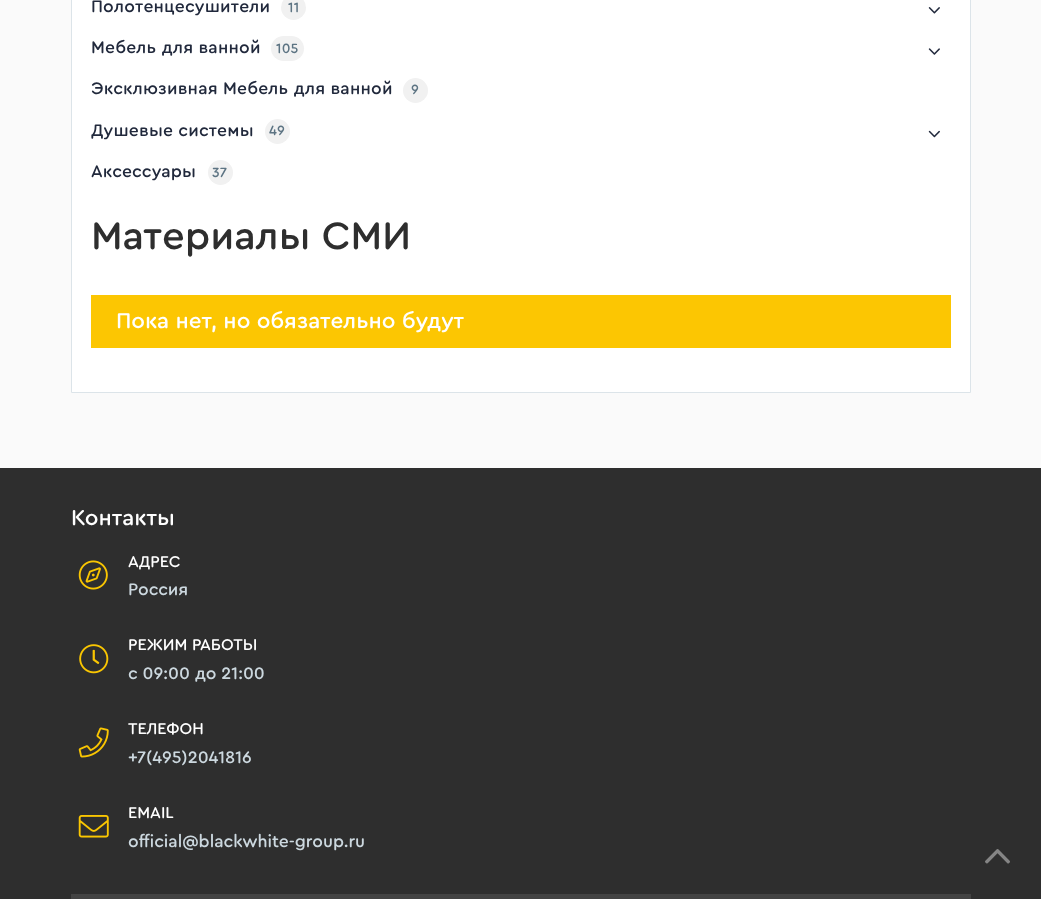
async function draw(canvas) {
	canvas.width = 1041;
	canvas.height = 899;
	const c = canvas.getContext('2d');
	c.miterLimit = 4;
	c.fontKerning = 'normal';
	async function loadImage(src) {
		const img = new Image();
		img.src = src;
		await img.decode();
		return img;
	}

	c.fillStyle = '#fafafa';
	c.fillRect(0, 0, 1041, 899);
	c.fillStyle = '#fff';
	c.beginPath();
	c.rect(71.5, -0.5, 899, 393);
	c.fill();
	c.strokeStyle = '#dce4e9';
	c.stroke();
	c.letterSpacing = '0.2px';
	c.font = '500 17.5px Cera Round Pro';
	c.fillStyle = '#21293c';
	c.fillText('Полотенцесушители', 91, 12);
	c.fillStyle = '#f1f1f1';
	c.beginPath();
	c.arc(293.5, 7.5, 12.5, 0, 2 * Math.PI);
	c.fill();
	c.font = '500 14px Cera Round Pro';
	c.fillStyle = '#5d7483';
	c.fillText('11', 288, 12);
	c.drawImage(await loadImage('img1.png'), 928, 7, 12, 7);
	c.font = '500 17.5px Cera Round Pro';
	c.fillStyle = '#21293c';
	c.fillText('Мебель для ванной', 91, 53);
	c.fillStyle = '#f1f1f1';
	c.beginPath();
	c.roundRect(271, 36, 33, 25, 12.5);
	c.fill();
	c.font = '500 14px Cera Round Pro';
	c.fillStyle = '#5d7483';
	c.fillText('105', 276, 53);
	c.drawImage(await loadImage('img2.png'), 928, 48, 12, 7);
	c.font = '500 17.5px Cera Round Pro';
	c.fillStyle = '#21293c';
	c.fillText('Эксклюзивная Мебель для ванной', 91, 94);
	c.fillStyle = '#f1f1f1';
	c.beginPath();
	c.arc(415.5, 90.5, 12.5, 0, 2 * Math.PI);
	c.fill();
	c.font = '500 14px Cera Round Pro';
	c.fillStyle = '#5d7483';
	c.fillText('9', 411, 94);
	c.font = '500 17.5px Cera Round Pro';
	c.fillStyle = '#21293c';
	c.fillText('Душевые системы', 91, 136);
	c.fillStyle = '#f1f1f1';
	c.beginPath();
	c.arc(277.5, 131.5, 12.5, 0, 2 * Math.PI);
	c.fill();
	c.font = '500 14px Cera Round Pro';
	c.fillStyle = '#5d7483';
	c.fillText('49', 269, 135);
	c.drawImage(await loadImage('img3.png'), 928, 130, 12, 8);
	c.font = '500 17.5px Cera Round Pro';
	c.fillStyle = '#21293c';
	c.fillText('Аксессуары', 91, 177);
	c.fillStyle = '#f1f1f1';
	c.beginPath();
	c.arc(220.5, 172.5, 12.5, 0, 2 * Math.PI);
	c.fill();
	c.font = '500 14px Cera Round Pro';
	c.fillStyle = '#5d7483';
	c.fillText('37', 212, 177);
	c.letterSpacing = '0px';
	c.font = '500 40px Cera Round Pro';
	c.fillStyle = '#2e2e2e';
	c.fillText('Материалы СМИ', 91, 249);
	c.fillStyle = '#fcc602';
	c.fillRect(91, 295, 860, 53);
	c.font = '500 22.5px Cera Round Pro';
	c.fillStyle = '#fff';
	c.fillText('Пока нет, но обязательно будут', 116, 328);
	c.fillStyle = '#2e2e2e';
	c.fillRect(0, 468, 1041, 431);
	c.fillStyle = '#fff';
	c.fillText('Контакты', 71, 525);
	c.drawImage(await loadImage('img4.png'), 78, 560, 30, 30);
	c.font = '500 16.25px Cera Round Pro';
	c.fillText('АДРЕС', 128, 567);
	c.font = '500 17.5px Cera Round Pro';
	c.fillStyle = '#ccd8df';
	c.fillText('Россия', 128, 595);
	c.drawImage(await loadImage('img5.png'), 79, 644, 30, 30);
	c.font = '500 16.25px Cera Round Pro';
	c.fillStyle = '#fff';
	c.fillText('РЕЖИМ РАБОТЫ', 128, 650);
	c.font = '500 17.5px Cera Round Pro';
	c.fillStyle = '#ccd8df';
	c.fillText('с 09:00 до 21:00', 128, 679);
	c.drawImage(await loadImage('img6.png'), 78, 727, 31, 31);
	c.font = '500 16.25px Cera Round Pro';
	c.fillStyle = '#fff';
	c.fillText('ТЕЛЕФОН', 128, 734);
	c.font = '500 17.5px Cera Round Pro';
	c.fillStyle = '#ccd8df';
	c.fillText('+7(495)2041816', 128, 763);
	c.drawImage(await loadImage('img7.png'), 78, 815, 31, 23);
	c.font = '500 16.25px Cera Round Pro';
	c.fillStyle = '#fff';
	c.fillText('EMAIL', 128, 818);
	c.font = '500 17.5px Cera Round Pro';
	c.fillStyle = '#ccd8df';
	c.fillText('official@blackwhite-group.ru', 128, 847);
	c.fillStyle = '#434343';
	c.fillRect(71, 894, 900, 5);
	c.drawImage(await loadImage('img8.png'), 985, 849, 25, 15);
}

draw(document.querySelector('canvas'));
